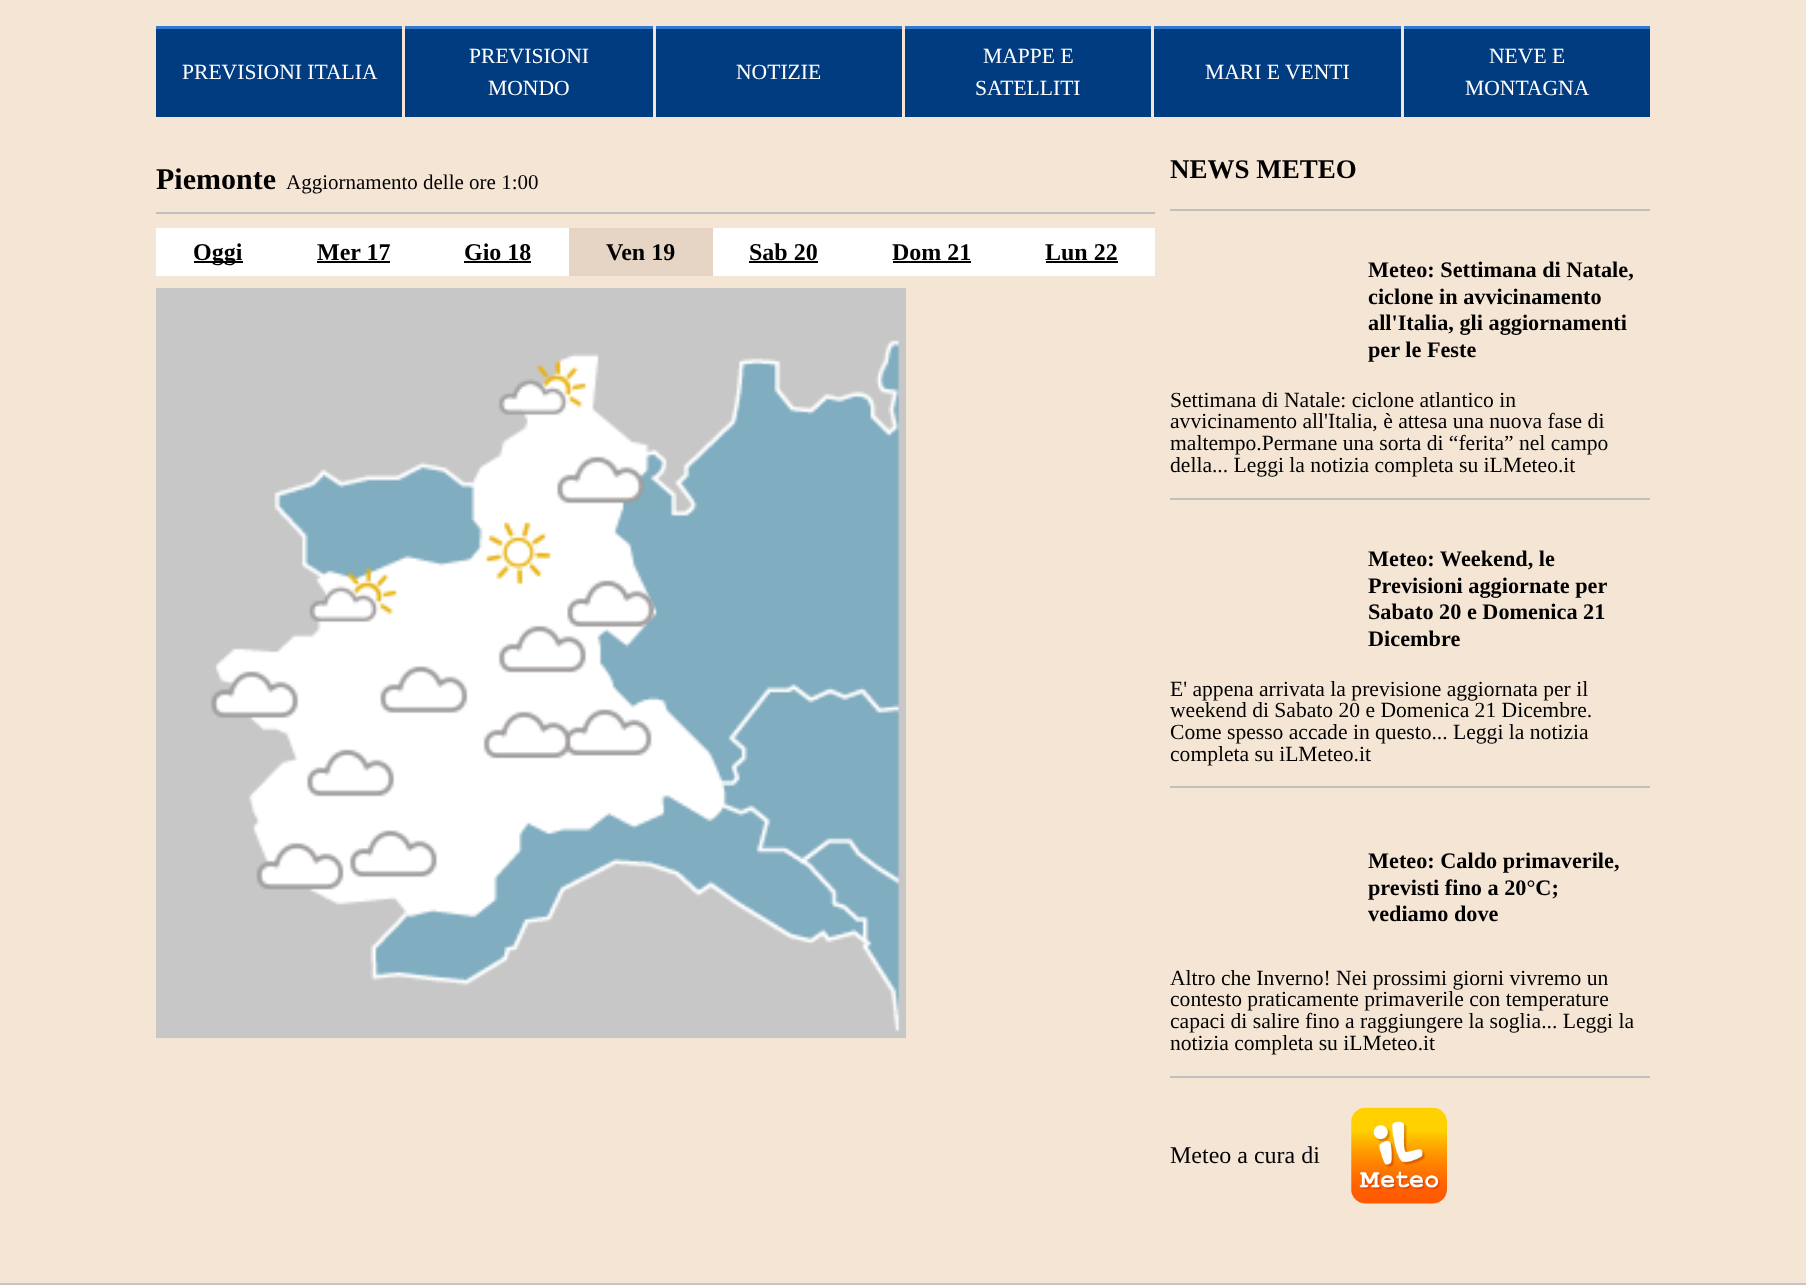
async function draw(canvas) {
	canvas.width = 1806;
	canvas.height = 1285;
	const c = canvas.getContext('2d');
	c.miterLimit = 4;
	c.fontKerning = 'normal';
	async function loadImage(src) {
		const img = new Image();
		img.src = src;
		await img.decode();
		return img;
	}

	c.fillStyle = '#f5e5d5';
	c.fillRect(0, 0, 1806, 1285);
	c.fillStyle = '#003c7f';
	c.fillRect(156, 29, 246, 88);
	c.fillStyle = '#2f7acf';
	c.fillRect(156, 26, 246, 3);
	c.font = '21.6px Liberation Serif';
	c.fillStyle = '#fff';
	c.fillText('PREVISIONI ITALIA', 182, 79);
	c.fillStyle = '#003c7f';
	c.fillRect(405, 29, 248, 88);
	c.fillStyle = '#2f7acf';
	c.fillRect(405, 26, 248, 3);
	c.fillStyle = '#fff';
	c.fillText('PREVISIONI', 469, 63);
	c.fillText('MONDO', 488, 95);
	c.fillStyle = '#003c7f';
	c.fillRect(656, 29, 246, 88);
	c.fillStyle = '#2f7acf';
	c.fillRect(656, 26, 246, 3);
	c.fillStyle = '#fff';
	c.fillText('NOTIZIE', 736, 79);
	c.fillStyle = '#003c7f';
	c.fillRect(905, 29, 246, 88);
	c.fillStyle = '#2f7acf';
	c.fillRect(905, 26, 246, 3);
	c.fillStyle = '#fff';
	c.fillText('MAPPE E', 983, 63);
	c.fillText('SATELLITI', 975, 95);
	c.fillStyle = '#003c7f';
	c.fillRect(1154, 29, 247, 88);
	c.fillStyle = '#2f7acf';
	c.fillRect(1154, 26, 247, 3);
	c.fillStyle = '#fff';
	c.fillText('MARI E VENTI', 1205, 79);
	c.fillStyle = '#003c7f';
	c.fillRect(1404, 29, 246, 88);
	c.fillStyle = '#2f7acf';
	c.fillRect(1404, 26, 246, 3);
	c.fillStyle = '#fff';
	c.fillText('NEVE E', 1489, 63);
	c.fillText('MONTAGNA', 1465, 95);
	c.fillStyle = '#bfbfbf';
	c.fillRect(156, 212, 999, 2);
	c.font = 'bold 30px Liberation Serif';
	c.fillStyle = '#000';
	c.fillText('Piemonte', 156, 189);
	c.font = '21px Liberation Serif';
	c.fillText('Aggiornamento delle ore 1:00', 286, 189);
	c.fillStyle = '#fff';
	c.fillRect(156, 228, 413, 48);
	c.fillStyle = '#000';
	c.fillRect(194, 261, 49, 2);
	c.font = 'bold 24px Liberation Serif';
	c.fillText('Oggi', 193, 260);
	c.fillText('Mer 17', 317, 260);
	c.fillRect(317, 261, 73, 2);
	c.fillText('Gio 18', 464, 260);
	c.fillRect(464, 261, 67, 2);
	c.fillStyle = '#e6d5c4';
	c.fillRect(569, 228, 144, 48);
	c.fillStyle = '#000';
	c.fillText('Ven 19', 606, 260);
	c.fillStyle = '#fff';
	c.fillRect(713, 228, 442, 48);
	c.fillStyle = '#000';
	c.fillText('Sab 20', 749, 260);
	c.fillRect(749, 261, 69, 2);
	c.fillText('Dom 21', 892, 260);
	c.fillRect(893, 261, 78, 2);
	c.fillText('Lun 22', 1045, 260);
	c.fillRect(1046, 261, 72, 2);
	c.drawImage(await loadImage('img1.png'), 156, 288, 750, 750);
	c.fillStyle = '#bfbfbf';
	c.fillRect(1170, 209, 480, 2);
	c.font = 'bold 27px Liberation Serif';
	c.fillStyle = '#000';
	c.fillText('NEWS METEO', 1170, 178);
	c.fillStyle = '#bfbfbf';
	c.fillRect(1170, 498, 480, 2);
	c.font = 'bold 22.25px Liberation Serif';
	c.fillStyle = '#000';
	for (const [text, x, y] of [
		['Meteo: Settimana di Natale,', 1368, 277],
		['ciclone in avvicinamento', 1368, 304],
		['all\'Italia, gli aggiornamenti', 1368, 330],
		['per le Feste', 1368, 357],
	]) {
		c.fillText(text, x, y);
	}
	c.font = '21.6px Liberation Serif';
	for (const [text, x, y] of [
		['Settimana di Natale: ciclone atlantico in', 1170, 407],
		['avvicinamento all\'Italia, è attesa una nuova fase di', 1170, 428],
		['maltempo.Permane una sorta di “ferita” nel campo', 1170, 450],
		['della... Leggi la notizia completa su iLMeteo.it', 1170, 472],
	]) {
		c.fillText(text, x, y);
	}
	c.fillStyle = '#bfbfbf';
	c.fillRect(1170, 786, 480, 2);
	c.font = 'bold 22.25px Liberation Serif';
	c.fillStyle = '#000';
	for (const [text, x, y] of [
		['Meteo: Weekend, le', 1368, 566],
		['Previsioni aggiornate per', 1368, 593],
		['Sabato 20 e Domenica 21', 1368, 619],
		['Dicembre', 1368, 646],
	]) {
		c.fillText(text, x, y);
	}
	c.font = '21.6px Liberation Serif';
	for (const [text, x, y] of [
		['E\' appena arrivata la previsione aggiornata per il', 1170, 696],
		['weekend di Sabato 20 e Domenica 21 Dicembre.', 1170, 717],
		['Come spesso accade in questo... Leggi la notizia', 1170, 739],
		['completa su iLMeteo.it', 1170, 761],
	]) {
		c.fillText(text, x, y);
	}
	c.fillStyle = '#bfbfbf';
	c.fillRect(1170, 1076, 480, 2);
	c.font = 'bold 22.25px Liberation Serif';
	c.fillStyle = '#000';
	for (const [text, x, y] of [
		['Meteo: Caldo primaverile,', 1368, 868],
		['previsti fino a 20°C;', 1368, 895],
		['vediamo dove', 1368, 921],
	]) {
		c.fillText(text, x, y);
	}
	c.font = '21.6px Liberation Serif';
	for (const [text, x, y] of [
		['Altro che Inverno! Nei prossimi giorni vivremo un', 1170, 985],
		['contesto praticamente primaverile con temperature', 1170, 1006],
		['capaci di salire fino a raggiungere la soglia... Leggi la', 1170, 1028],
		['notizia completa su iLMeteo.it', 1170, 1050],
	]) {
		c.fillText(text, x, y);
	}
	c.font = '24px Liberation Serif';
	c.fillText('Meteo a cura di', 1170, 1163);
	c.drawImage(await loadImage('img2.png'), 1351, 1107, 96, 97);
	c.fillStyle = '#c5c5c5';
	c.fillRect(0, 1283, 1806, 2);
}

draw(document.querySelector('canvas'));
